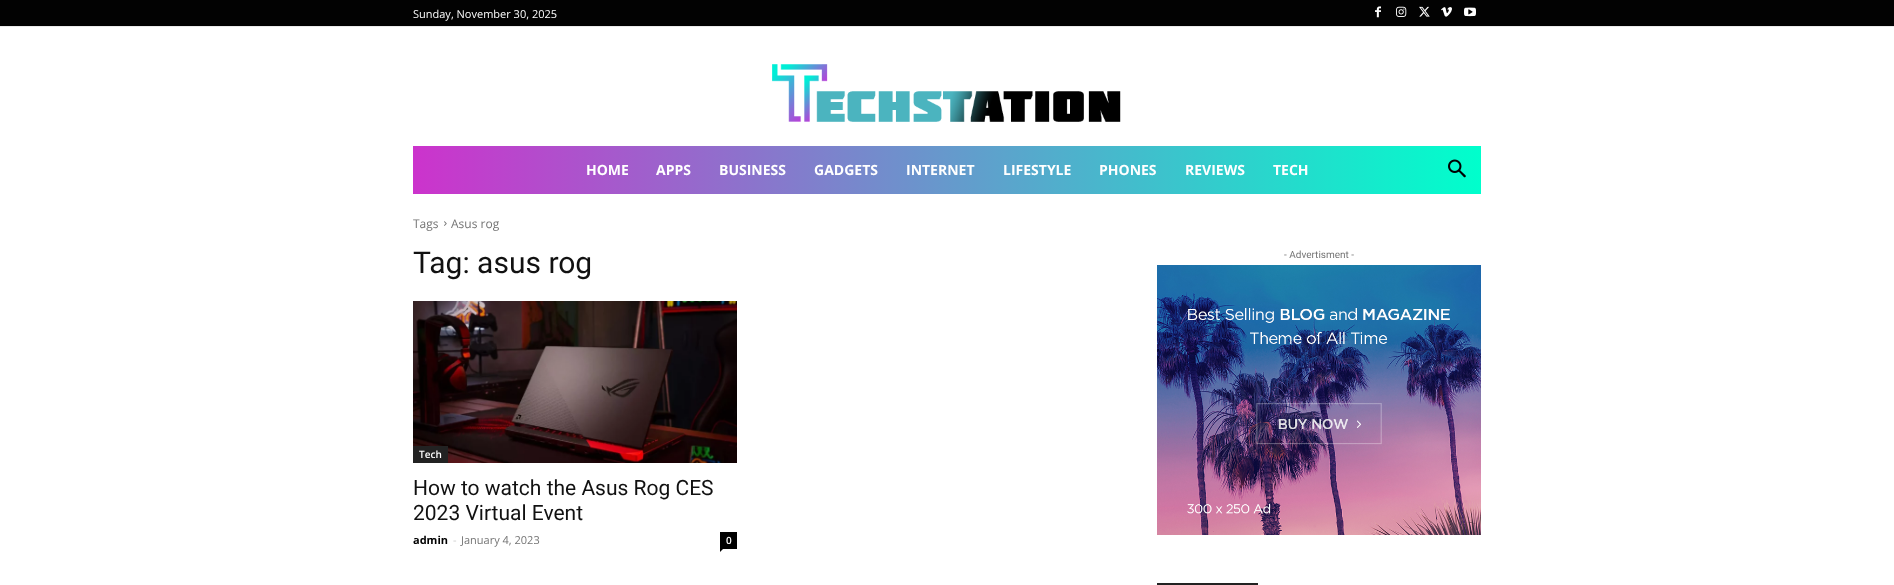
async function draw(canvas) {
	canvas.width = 1894;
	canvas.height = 585;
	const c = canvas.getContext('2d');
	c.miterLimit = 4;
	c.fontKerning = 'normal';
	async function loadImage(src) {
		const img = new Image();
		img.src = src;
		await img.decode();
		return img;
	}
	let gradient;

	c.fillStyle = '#fff';
	c.fillRect(0, 0, 1894, 585);
	c.fillStyle = '#020202';
	c.fillRect(0, 0, 1894, 26);
	c.fillStyle = '#ebebeb';
	c.fillRect(0, 26, 1894, 1);
	c.font = '11px Open Sans';
	c.fillStyle = '#fff';
	c.fillText('Sunday, November 30, 2025', 413, 18);
	c.drawImage(await loadImage('img1.png'), 1375, 6, 6, 12);
	c.drawImage(await loadImage('img2.png'), 1396, 6, 11, 11);
	c.drawImage(await loadImage('img3.png'), 1419, 6, 11, 11);
	c.drawImage(await loadImage('img4.png'), 1441, 7, 11, 10);
	c.drawImage(await loadImage('img5.png'), 1464, 7, 12, 10);
	c.drawImage(await loadImage('img6.png'), 772, 64, 349, 58);
	gradient = c.createLinearGradient(413, 170, 1481, 170);
	gradient.addColorStop(0, '#c3c');
	gradient.addColorStop(1, '#0fc');
	c.fillStyle = gradient;
	c.fillRect(413, 146, 1068, 48);
	c.font = 'bold 14px Open Sans';
	c.fillStyle = '#fff';
	for (const [text, x, y] of [
		['HOME', 586, 175],
		['APPS', 656, 175],
		['BUSINESS', 719, 175],
		['GADGETS', 814, 175],
		['INTERNET', 906, 175],
		['LIFESTYLE', 1003, 175],
		['PHONES', 1099, 175],
		['REVIEWS', 1185, 175],
		['TECH', 1273, 175],
	]) {
		c.fillText(text, x, y);
	}
	c.drawImage(await loadImage('img7.png'), 1448, 159, 18, 19);
	c.font = '12px Open Sans';
	c.fillStyle = '#747474';
	c.fillText('Tags', 413, 228);
	c.drawImage(await loadImage('img8.png'), 444, 221, 3, 5);
	c.fillText('Asus rog', 451, 228);
	c.font = '30px Roboto';
	c.fillStyle = '#111';
	c.fillText('Tag: asus rog', 413, 273);
	c.drawImage(await loadImage('img9.png'), 413, 301, 324, 162);
	c.fillStyle = '#222';
	c.fillRect(413, 446, 35, 17);
	c.font = '600 10px Open Sans';
	c.fillStyle = '#fff';
	c.fillText('Tech', 419, 458);
	c.font = '21px Roboto';
	c.fillStyle = '#111';
	c.fillText('How to watch the Asus Rog CES', 413, 495);
	c.fillText('2023 Virtual Event', 413, 520);
	c.font = 'bold 11px Open Sans';
	c.fillStyle = '#000';
	c.fillText('admin', 413, 544);
	c.font = '11px Open Sans';
	c.fillStyle = '#ccc';
	c.fillText('-', 453, 544);
	c.fillStyle = '#747474';
	c.fillText('January 4, 2023', 461, 544);
	c.fillStyle = '#000';
	c.fillRect(720, 532, 17, 17);
	c.font = '600 10px Open Sans';
	c.fillStyle = '#fff';
	c.fillText('0', 726, 544);
	c.fillStyle = '#000';
	c.beginPath();
	c.moveTo(720, 549);
	c.lineTo(723, 549);
	c.lineTo(720, 552);
	c.closePath();
	c.fill();
	c.font = '10px Roboto';
	c.fillStyle = '#747474';
	c.fillText('- Advertisment -', 1284, 258);
	c.drawImage(await loadImage('img10.png'), 1157, 265, 324, 270);
	c.fillStyle = '#222';
	c.fillRect(1157, 583, 101, 2);
}

draw(document.querySelector('canvas'));
